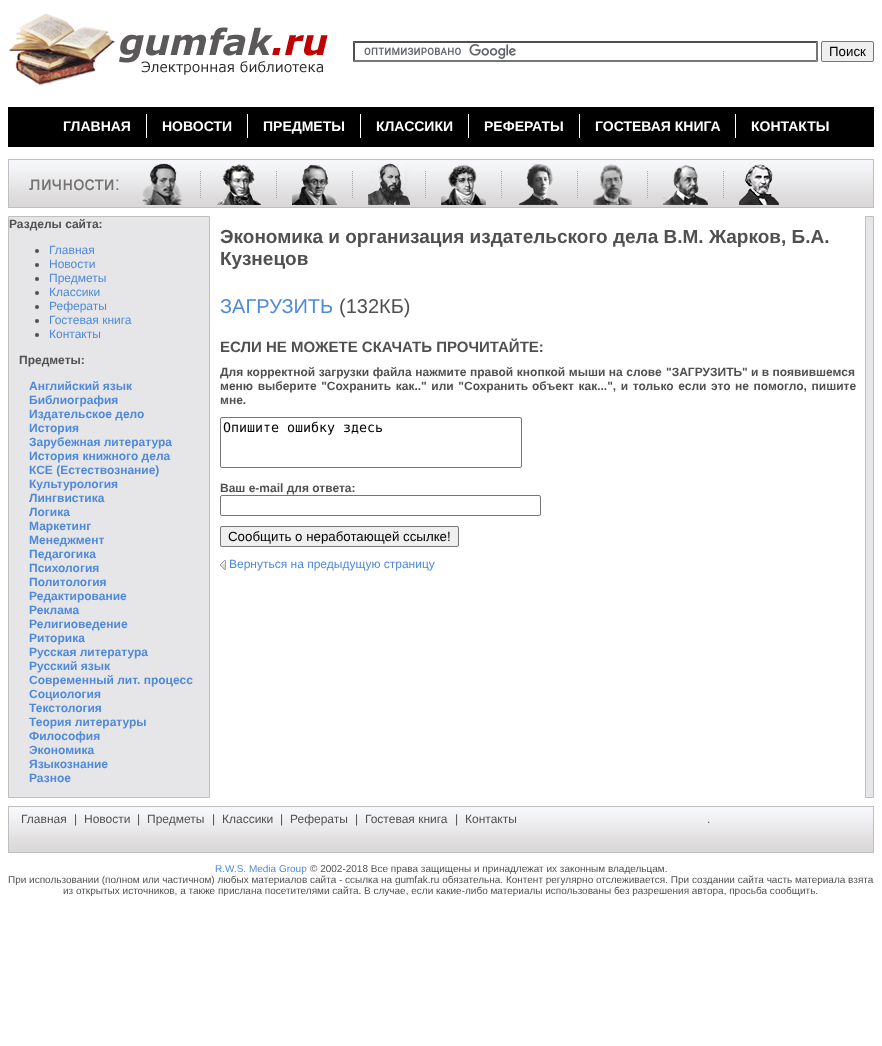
async function draw(canvas) {
	canvas.width = 882;
	canvas.height = 1046;
	const c = canvas.getContext('2d');
	c.miterLimit = 4;
	c.fontKerning = 'normal';
	async function loadImage(src) {
		const img = new Image();
		img.src = src;
		await img.decode();
		return img;
	}

	c.fillStyle = '#fff';
	c.fillRect(0, 0, 882, 1046);
	c.drawImage(await loadImage('img1.png'), 9, 13, 319, 73);
	c.drawImage(await loadImage('img2.png'), 364, 44, 152, 15);
	c.fillStyle = '#4f4f4f';
	c.beginPath();
	c.moveTo(353, 41);
	c.lineTo(818, 41);
	c.lineTo(816, 43);
	c.lineTo(355, 43);
	c.closePath();
	c.fill();
	c.fillStyle = '#767676';
	c.beginPath();
	c.moveTo(818, 41);
	c.lineTo(818, 62);
	c.lineTo(816, 60);
	c.lineTo(816, 43);
	c.closePath();
	c.fill();
	c.beginPath();
	c.moveTo(818, 62);
	c.lineTo(353, 62);
	c.lineTo(355, 60);
	c.lineTo(816, 60);
	c.closePath();
	c.fill();
	c.fillStyle = '#4f4f4f';
	c.beginPath();
	c.moveTo(353, 62);
	c.lineTo(353, 41);
	c.lineTo(355, 43);
	c.lineTo(355, 60);
	c.closePath();
	c.fill();
	c.fillStyle = '#efefef';
	c.beginPath();
	c.roundRect(821.5, 41.5, 52, 20, 1.5);
	c.fill();
	c.strokeStyle = '#767676';
	c.stroke();
	c.font = '13.3px Liberation Sans';
	c.fillStyle = '#000';
	c.fillText('Поиск', 829, 56);
	c.fillRect(8, 107, 866, 40);
	c.fillStyle = '#fff';
	c.fillRect(146, 114, 1, 24);
	c.font = 'bold 14px Liberation Sans';
	c.fillText('ГЛАВНАЯ', 63, 131);
	c.fillRect(247, 114, 1, 24);
	c.fillText('НОВОСТИ', 162, 131);
	c.fillRect(360, 114, 1, 24);
	c.fillText('ПРЕДМЕТЫ', 263, 131);
	c.fillRect(468, 114, 1, 24);
	c.fillText('КЛАССИКИ', 376, 131);
	c.fillRect(579, 114, 1, 24);
	c.fillText('РЕФЕРАТЫ', 484, 131);
	c.fillRect(735, 114, 1, 24);
	c.fillText('ГОСТЕВАЯ КНИГА', 595, 131);
	c.fillText('КОНТАКТЫ', 751, 131);
	c.drawImage(await loadImage('img3.png'), 9, 160, 864, 47);
	c.strokeStyle = '#bfbfbf';
	c.strokeRect(8.5, 159.5, 865, 48);
	c.drawImage(await loadImage('img4.png'), 29, 179, 90, 12);
	c.drawImage(await loadImage('img5.png'), 142, 163, 40, 42);
	c.drawImage(await loadImage('img6.png'), 200, 171, 1, 27);
	c.drawImage(await loadImage('img7.png'), 217, 163, 44, 42);
	c.drawImage(await loadImage('img6.png'), 276, 171, 1, 27);
	c.drawImage(await loadImage('img8.png'), 292, 164, 45, 41);
	c.drawImage(await loadImage('img6.png'), 352, 171, 1, 27);
	c.drawImage(await loadImage('img9.png'), 368, 163, 42, 42);
	c.drawImage(await loadImage('img6.png'), 425, 171, 1, 27);
	c.drawImage(await loadImage('img10.png'), 441, 164, 45, 41);
	c.drawImage(await loadImage('img6.png'), 501, 171, 1, 27);
	c.drawImage(await loadImage('img11.png'), 519, 164, 40, 41);
	c.drawImage(await loadImage('img6.png'), 577, 171, 1, 27);
	c.drawImage(await loadImage('img12.png'), 593, 164, 39, 41);
	c.drawImage(await loadImage('img6.png'), 647, 171, 1, 27);
	c.drawImage(await loadImage('img13.png'), 663, 165, 45, 40);
	c.drawImage(await loadImage('img6.png'), 723, 171, 1, 27);
	c.drawImage(await loadImage('img14.png'), 739, 163, 40, 42);
	c.fillStyle = '#e6e6e8';
	c.beginPath();
	c.rect(8.5, 216.5, 201, 581);
	c.fill();
	c.stroke();
	c.font = 'bold 12px Liberation Sans';
	c.fillStyle = '#505050';
	c.fillText('Разделы сайта:', 9, 228);
	c.beginPath();
	c.arc(37, 251, 2, 0, 2 * Math.PI);
	c.fill();
	c.font = '12px Liberation Sans';
	c.fillStyle = '#4e8adb';
	c.fillText('Главная', 49, 254);
	c.fillStyle = '#505050';
	c.beginPath();
	c.arc(37, 265, 2, 0, 2 * Math.PI);
	c.fill();
	c.fillStyle = '#4e8adb';
	c.fillText('Новости', 49, 268);
	c.fillStyle = '#505050';
	c.beginPath();
	c.arc(37, 279, 2, 0, 2 * Math.PI);
	c.fill();
	c.fillStyle = '#4e8adb';
	c.fillText('Предметы', 49, 282);
	c.fillStyle = '#505050';
	c.beginPath();
	c.arc(37, 293, 2, 0, 2 * Math.PI);
	c.fill();
	c.fillStyle = '#4e8adb';
	c.fillText('Классики', 49, 296);
	c.fillStyle = '#505050';
	c.beginPath();
	c.arc(37, 307, 2, 0, 2 * Math.PI);
	c.fill();
	c.fillStyle = '#4e8adb';
	c.fillText('Рефераты', 49, 310);
	c.fillStyle = '#505050';
	c.beginPath();
	c.arc(37, 321, 2, 0, 2 * Math.PI);
	c.fill();
	c.fillStyle = '#4e8adb';
	c.fillText('Гостевая книга', 49, 324);
	c.fillStyle = '#505050';
	c.beginPath();
	c.arc(37, 335, 2, 0, 2 * Math.PI);
	c.fill();
	c.fillStyle = '#4e8adb';
	c.fillText('Контакты', 49, 338);
	c.font = 'bold 12px Liberation Sans';
	c.fillStyle = '#505050';
	c.fillText('Предметы:', 19, 364);
	c.fillStyle = '#4e8adb';
	for (const [text, x, y] of [
		['Английский язык', 29, 390],
		['Библиография', 29, 404],
		['Издательское дело', 29, 418],
		['История', 29, 432],
		['Зарубежная литература', 29, 446],
		['История книжного дела', 29, 460],
		['КСЕ (Естествознание)', 29, 474],
		['Культурология', 29, 488],
		['Лингвистика', 29, 502],
		['Логика', 29, 516],
		['Маркетинг', 29, 530],
		['Менеджмент', 29, 544],
		['Педагогика', 29, 558],
		['Психология', 29, 572],
		['Политология', 29, 586],
		['Редактирование', 29, 600],
		['Реклама', 29, 614],
		['Религиоведение', 29, 628],
		['Риторика', 29, 642],
		['Русская литература', 29, 656],
		['Русский язык', 29, 670],
		['Современный лит. процесс', 29, 684],
		['Социология', 29, 698],
		['Текстология', 29, 712],
		['Теория литературы', 29, 726],
		['Философия', 29, 740],
		['Экономика', 29, 754],
		['Языкознание', 29, 768],
		['Разное', 29, 782],
	]) {
		c.fillText(text, x, y);
	}
	c.font = 'bold 19px Liberation Sans';
	c.fillStyle = '#505050';
	c.fillText('Экономика и организация издательского дела В.М. Жарков, Б.А.', 220, 243);
	c.fillText('Кузнецов', 220, 265);
	c.font = '20px Liberation Sans';
	c.fillStyle = '#4e8adb';
	c.fillText('ЗАГРУЗИТЬ', 220, 313);
	c.fillStyle = '#505050';
	c.fillText('(132КБ)', 339, 313);
	c.font = 'bold 15px Liberation Sans';
	c.fillText('ЕСЛИ НЕ МОЖЕТЕ СКАЧАТЬ ПРОЧИТАЙТЕ:', 220, 352);
	c.wordSpacing = '0.25px';
	c.font = 'bold 12px Liberation Sans';
	c.fillText('Для корректной загрузки файла нажмите правой кнопкой мыши на слове', 220, 376);
	c.wordSpacing = '0px';
	c.fillText('"ЗАГРУЗИТЬ" и в появившемся', 666, 376);
	c.wordSpacing = '1.25px';
	c.fillText('меню выберите "Сохранить как.." или "Сохранить', 220, 390);
	c.fillText('объект как...", и только если это не помогло, пишите', 532, 390);
	c.wordSpacing = '0px';
	c.fillText('мне.', 220, 404);
	c.beginPath();
	c.roundRect(220.5, 417.5, 301, 50, 1.5);
	c.strokeStyle = '#767676';
	c.stroke();
	c.font = '13.3px DejaVu Sans Mono';
	c.fillStyle = '#000';
	c.fillText('Опишите ошибку здесь', 223, 432);
	c.font = 'bold 12px Liberation Sans';
	c.fillStyle = '#505050';
	c.fillText('Ваш e-mail для ответа:', 220, 492);
	c.beginPath();
	c.roundRect(220.5, 495.5, 320, 20, 1.5);
	c.stroke();
	c.fillStyle = '#efefef';
	c.beginPath();
	c.roundRect(220.5, 526.5, 238, 20, 1.5);
	c.fill();
	c.stroke();
	c.font = '13.3px Liberation Sans';
	c.fillStyle = '#000';
	c.fillText('Сообщить о неработающей ссылке!', 228, 541);
	c.drawImage(await loadImage('img15.png'), 220, 560, 6, 10);
	c.font = '12px Liberation Sans';
	c.fillStyle = '#4e8adb';
	c.fillText('Вернуться на предыдущую страницу', 229, 568);
	c.fillStyle = '#e6e6e8';
	c.beginPath();
	c.rect(865.5, 216.5, 8, 581);
	c.fill();
	c.strokeStyle = '#bfbfbf';
	c.stroke();
	c.drawImage(await loadImage('img16.png'), 9, 807, 864, 45);
	c.strokeRect(8.5, 806.5, 865, 46);
	c.fillStyle = '#505050';
	for (const [text, x, y] of [
		['Главная', 21, 823],
		['|', 74, 823],
		['Новости', 84, 823],
		['|', 137, 823],
		['Предметы', 147, 823],
		['|', 212, 823],
		['Классики', 222, 823],
		['|', 280, 823],
		['Рефераты', 290, 823],
		['|', 355, 823],
		['Гостевая книга', 365, 823],
		['|', 455, 823],
		['Контакты', 465, 823],
		['.', 707, 823],
	]) {
		c.fillText(text, x, y);
	}
	c.font = '10px Liberation Sans';
	c.fillStyle = '#4e8adb';
	c.fillText('R.W.S. Media Group', 215, 872);
	c.fillStyle = '#505050';
	for (const [text, x, y] of [
		['© 2002-2018 Все права защищены и принадлежат их законным владельцам.', 310, 872],
		['При использовании (полном или частичном) любых материалов сайта - ссылка на gumfak.ru обязательна. Контент регулярно отслеживается. При создании сайта часть материала взята', 8, 883],
		['из открытых источников, а также прислана посетителями сайта. В случае, если какие-либо материалы использованы без разрешения автора, просьба сообщить.', 63, 894],
	]) {
		c.fillText(text, x, y);
	}
}

draw(document.querySelector('canvas'));
